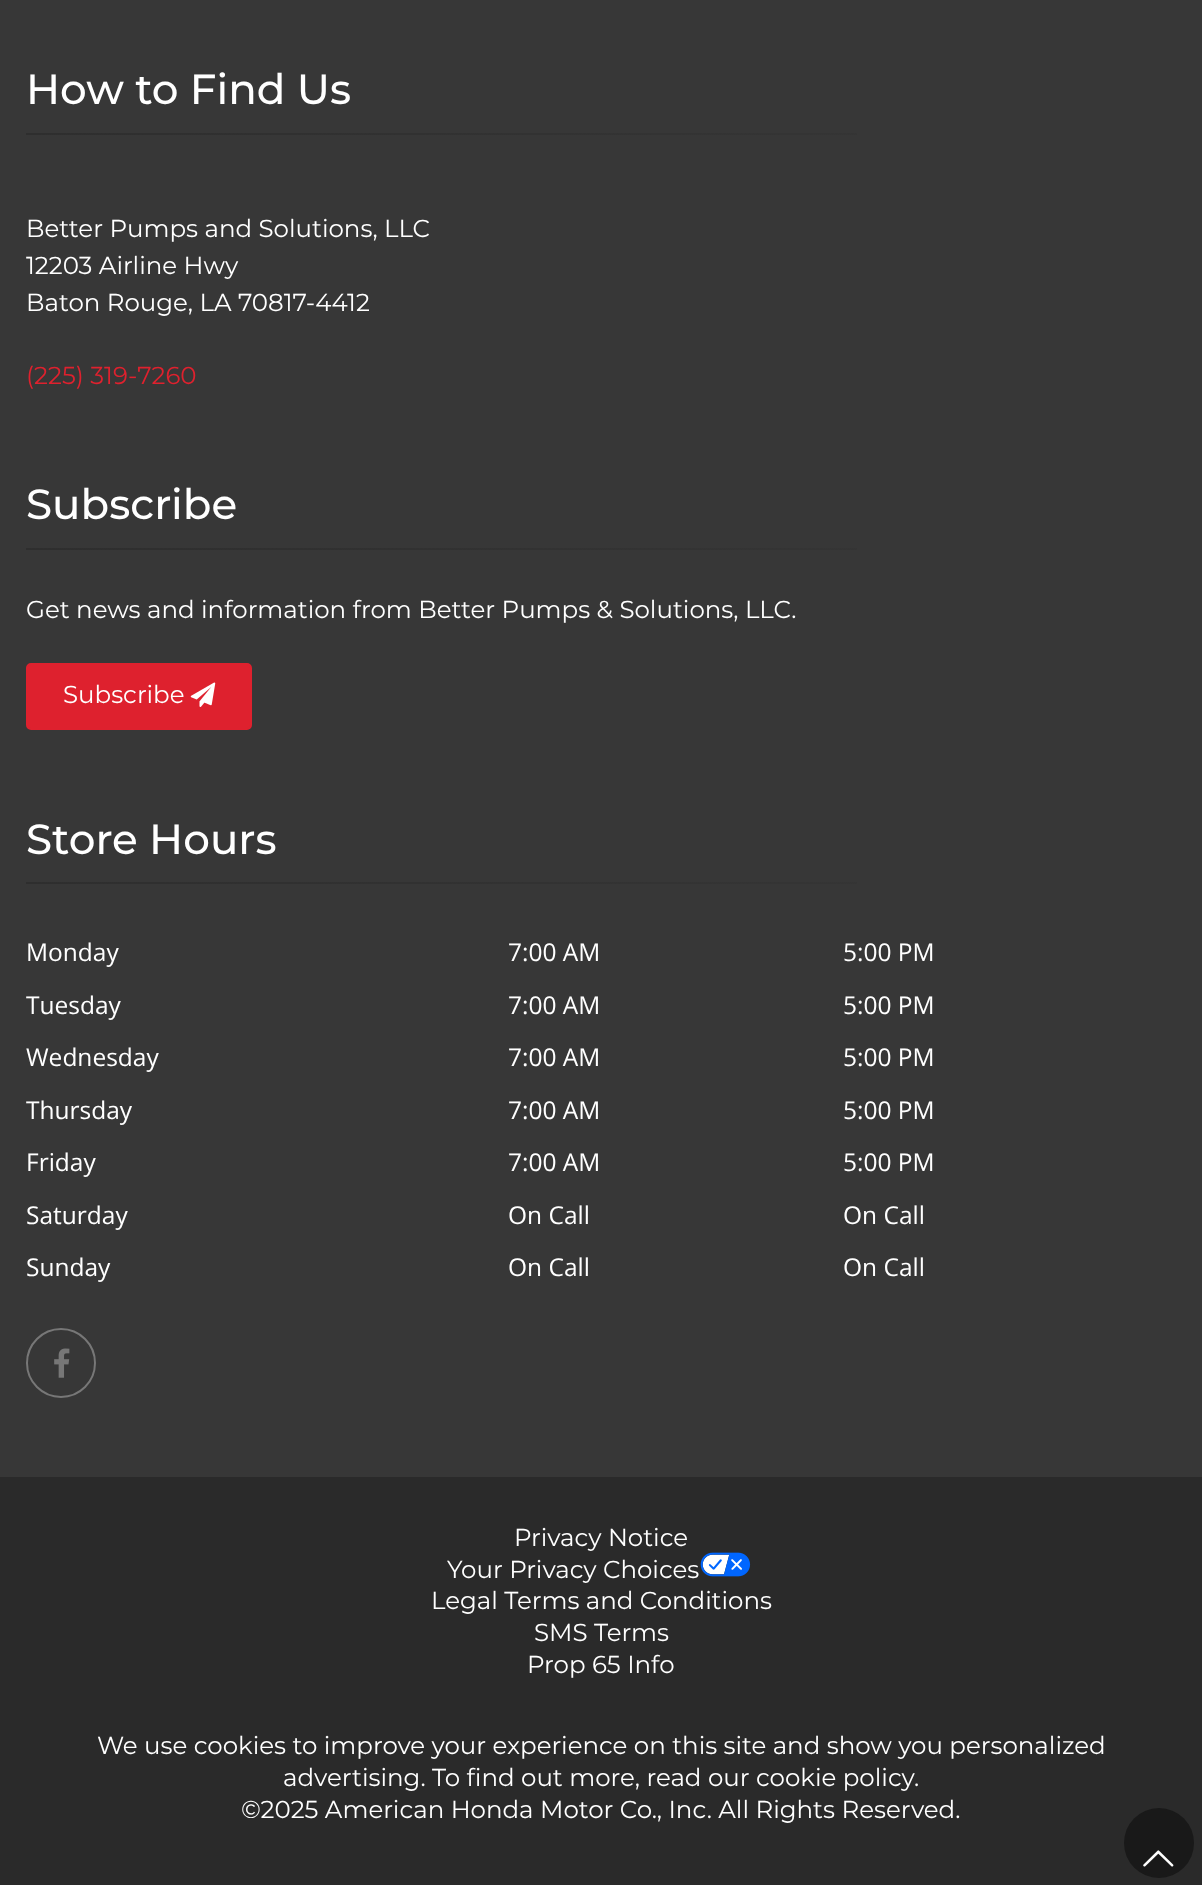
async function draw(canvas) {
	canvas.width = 1202;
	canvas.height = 1885;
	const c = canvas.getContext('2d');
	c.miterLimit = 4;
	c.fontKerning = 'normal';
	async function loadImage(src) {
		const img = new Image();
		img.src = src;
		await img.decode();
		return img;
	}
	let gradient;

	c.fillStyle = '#373737';
	c.fillRect(0, 0, 1202, 1885);
	c.font = '500 42px Montserrat';
	c.fillStyle = '#fff';
	c.fillText('How to Find Us', 26, 104);
	gradient = c.createLinearGradient(26, 134, 1176, 134);
	gradient.addColorStop(0, '#2e2e2e');
	gradient.addColorStop(1, '#373737');
	c.fillStyle = gradient;
	c.fillRect(26, 133, 831, 2);
	c.font = '24.5px Montserrat';
	c.fillStyle = '#fff';
	for (const [text, x, y] of [
		['Better Pumps and Solutions, LLC', 26, 237],
		['12203 Airline Hwy', 26, 274],
		['Baton Rouge, LA 70817-4412', 26, 311],
	]) {
		c.fillText(text, x, y);
	}
	c.fillStyle = '#de212e';
	c.fillText('(225) 319-7260', 26, 384);
	c.font = '500 42px Montserrat';
	c.fillStyle = '#fff';
	c.fillText('Subscribe', 26, 519);
	gradient = c.createLinearGradient(26, 549, 1176, 549);
	gradient.addColorStop(0, '#2e2e2e');
	gradient.addColorStop(1, '#373737');
	c.fillStyle = gradient;
	c.fillRect(26, 548, 831, 2);
	c.font = '24.5px Montserrat';
	c.fillStyle = '#fff';
	c.fillText('Get news and information from Better Pumps & Solutions, LLC.', 26, 618);
	c.fillStyle = '#de212e';
	c.beginPath();
	c.roundRect(27, 664, 224, 65, 4);
	c.fill();
	c.strokeStyle = '#de212e';
	c.lineWidth = 2;
	c.stroke();
	c.fillStyle = '#fff';
	c.fillText('Subscribe', 63, 703);
	c.drawImage(await loadImage('img1.png'), 190, 682, 26, 25);
	c.font = '500 42px Montserrat';
	c.fillText('Store Hours', 26, 854);
	gradient = c.createLinearGradient(26, 883, 1176, 883);
	gradient.addColorStop(0, '#2e2e2e');
	gradient.addColorStop(1, '#373737');
	c.fillStyle = gradient;
	c.fillRect(26, 882, 831, 2);
	c.font = '24.5px Open Sans';
	c.fillStyle = '#fff';
	for (const [text, x, y] of [
		['Monday', 26, 961],
		['7:00 AM', 508, 961],
		['5:00 PM', 843, 961],
		['Tuesday', 26, 1014],
		['7:00 AM', 508, 1014],
		['5:00 PM', 843, 1014],
		['Wednesday', 26, 1066],
		['7:00 AM', 508, 1066],
		['5:00 PM', 843, 1066],
		['Thursday', 26, 1119],
		['7:00 AM', 508, 1119],
		['5:00 PM', 843, 1119],
		['Friday', 26, 1171],
		['7:00 AM', 508, 1171],
		['5:00 PM', 843, 1171],
		['Saturday', 26, 1224],
		['On Call', 508, 1224],
		['On Call', 843, 1224],
		['Sunday', 26, 1276],
		['On Call', 508, 1276],
		['On Call', 843, 1276],
	]) {
		c.fillText(text, x, y);
	}
	c.beginPath();
	c.arc(61, 1363, 34, 0, 2 * Math.PI);
	c.strokeStyle = '#777';
	c.stroke();
	c.drawImage(await loadImage('img2.png'), 54, 1348, 16, 30);
	c.fillStyle = '#2a2a2a';
	c.fillRect(0, 1477, 1202, 408);
	c.font = '24.5px Montserrat';
	c.fillStyle = '#fff';
	c.fillText('Privacy Notice', 514, 1546);
	c.fillText('Your Privacy Choices', 447, 1578);
	c.drawImage(await loadImage('img3.png'), 700, 1552, 51, 25);
	for (const [text, x, y] of [
		['Legal Terms and Conditions', 431, 1609],
		['SMS Terms', 534, 1641],
		['Prop 65 Info', 527, 1673],
		['We use cookies to improve your experience on this site and show you personalized', 97, 1754],
		['advertising. To find out more, read our cookie policy.', 283, 1786],
		['©2025 American Honda Motor Co., Inc. All Rights Reserved.', 241, 1818],
	]) {
		c.fillText(text, x, y);
	}
	c.fillStyle = '#191919';
	c.beginPath();
	c.arc(1159, 1843, 35, 0, 2 * Math.PI);
	c.fill();
	c.drawImage(await loadImage('img4.png'), 1143, 1850, 31, 17);
}

draw(document.querySelector('canvas'));
